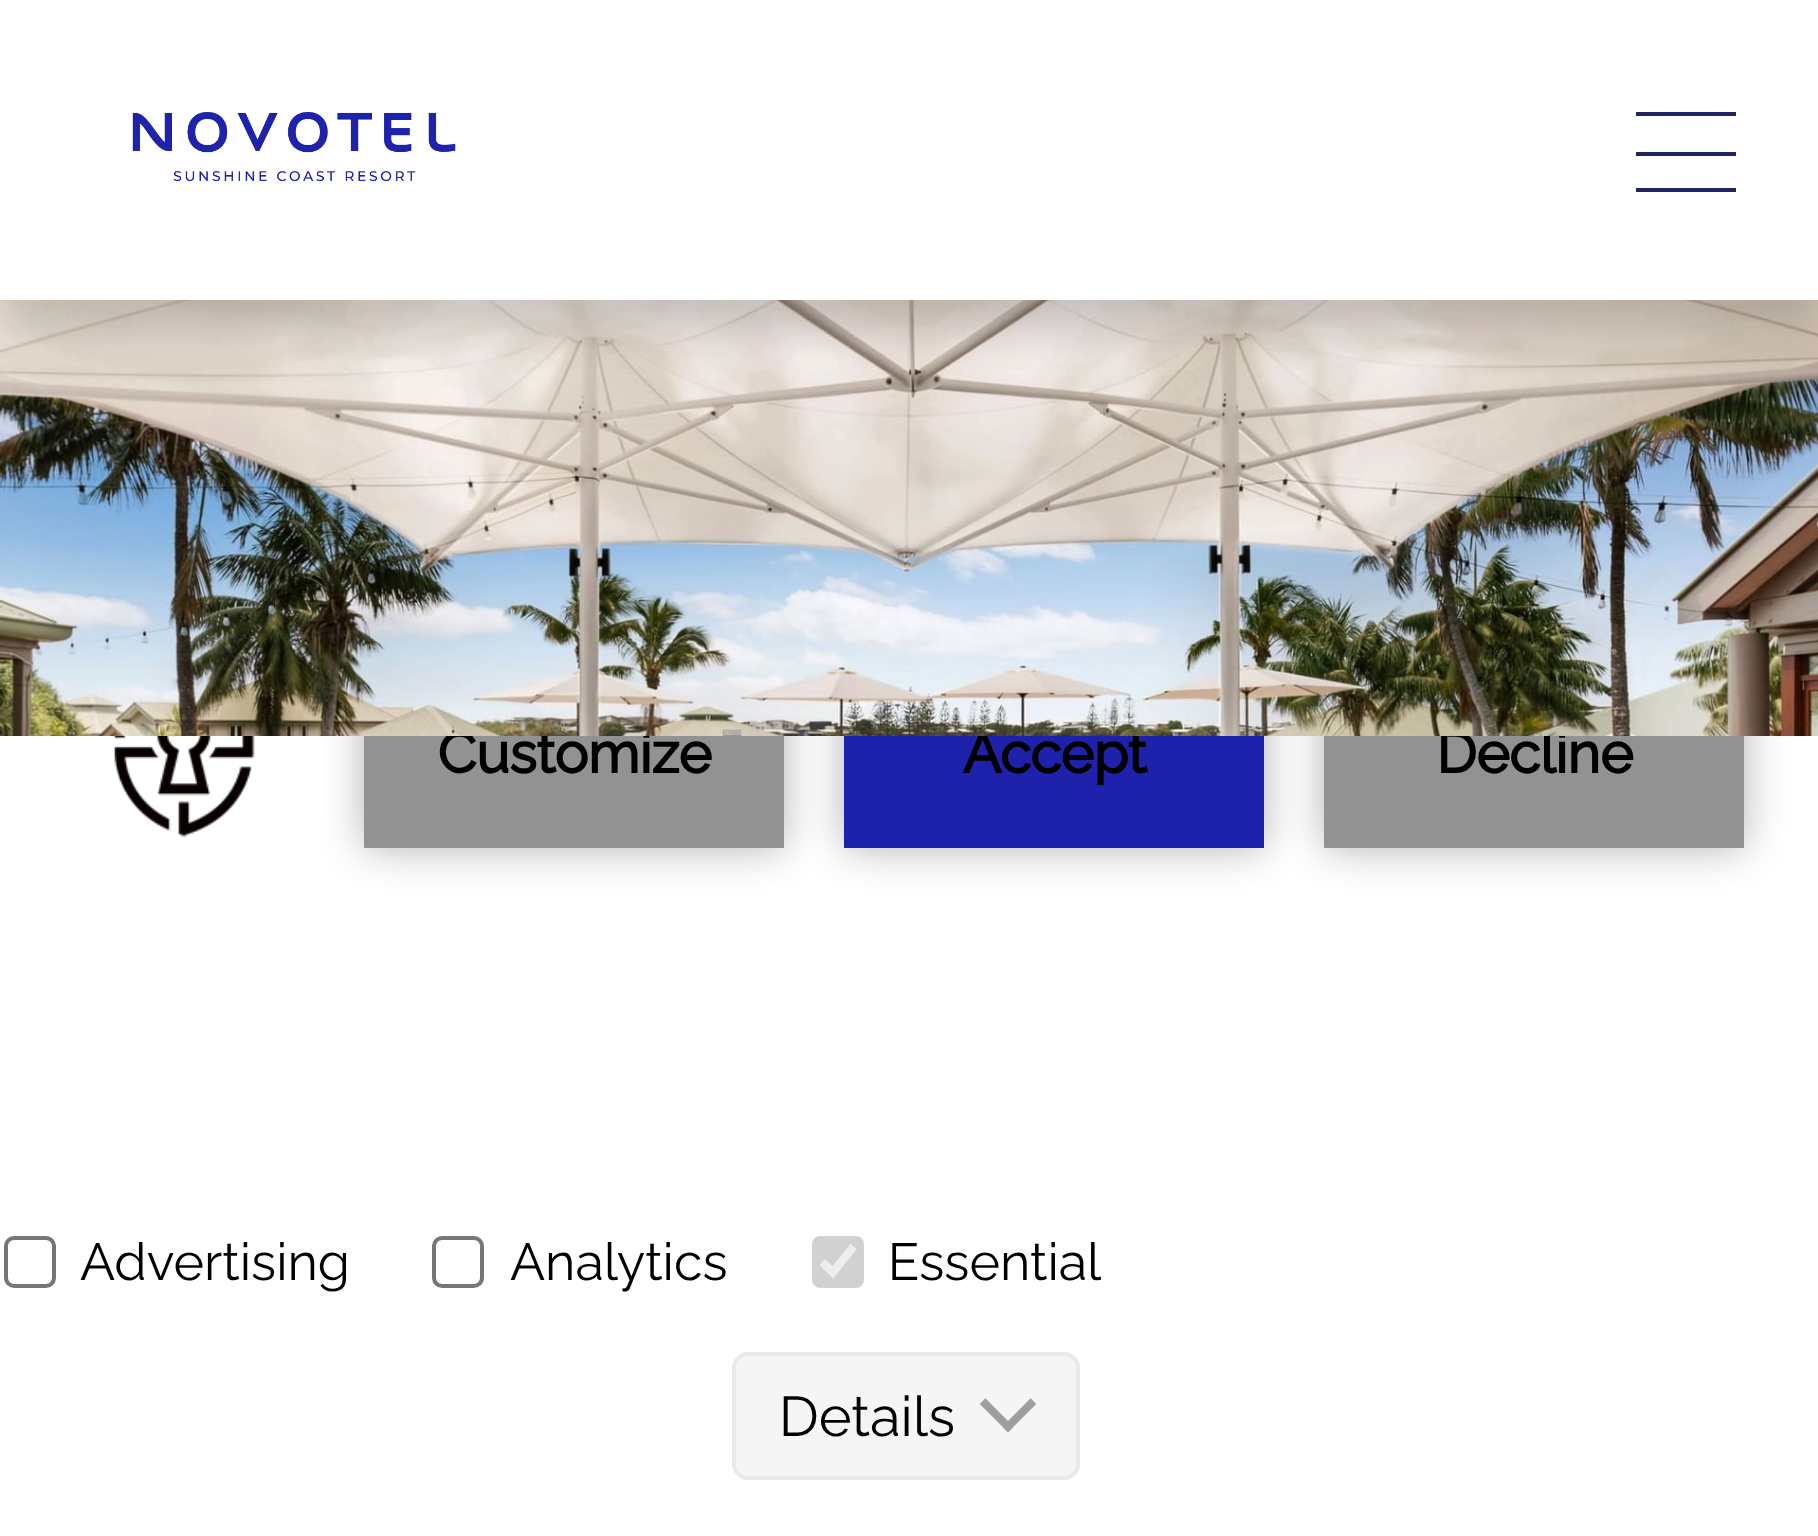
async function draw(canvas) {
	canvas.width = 1818;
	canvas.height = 1536;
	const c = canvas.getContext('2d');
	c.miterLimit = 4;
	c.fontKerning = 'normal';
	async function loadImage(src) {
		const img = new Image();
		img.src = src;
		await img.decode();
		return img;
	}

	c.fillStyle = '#fff';
	c.fillRect(0, 0, 1818, 1536);
	c.drawImage(await loadImage('img2.png'), 0, 300, 1818, 436);
	c.fillStyle = '#00000029';
	c.filter = 'blur(20px)';
	c.beginPath();
	c.rect(0, 28, 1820, 300);
	c.fill();
	c.filter = 'none';
	c.fillStyle = '#fff';
	c.fillRect(0, 0, 1818, 300);
	c.drawImage(await loadImage('img1.png'), 132, 112, 324, 70);
	for (const [x, y, w, h, color] of [
		[1636, 112, 100, 4, '#20255f'],
		[1636, 152, 100, 4, '#20255f'],
		[1636, 188, 100, 4, '#20255f'],
	]) {
		c.fillStyle = color;
		c.fillRect(x, y, w, h);
	}
	c.drawImage(await loadImage('img3.png'), 0, 736, 1818, 800);
}

draw(document.querySelector('canvas'));
